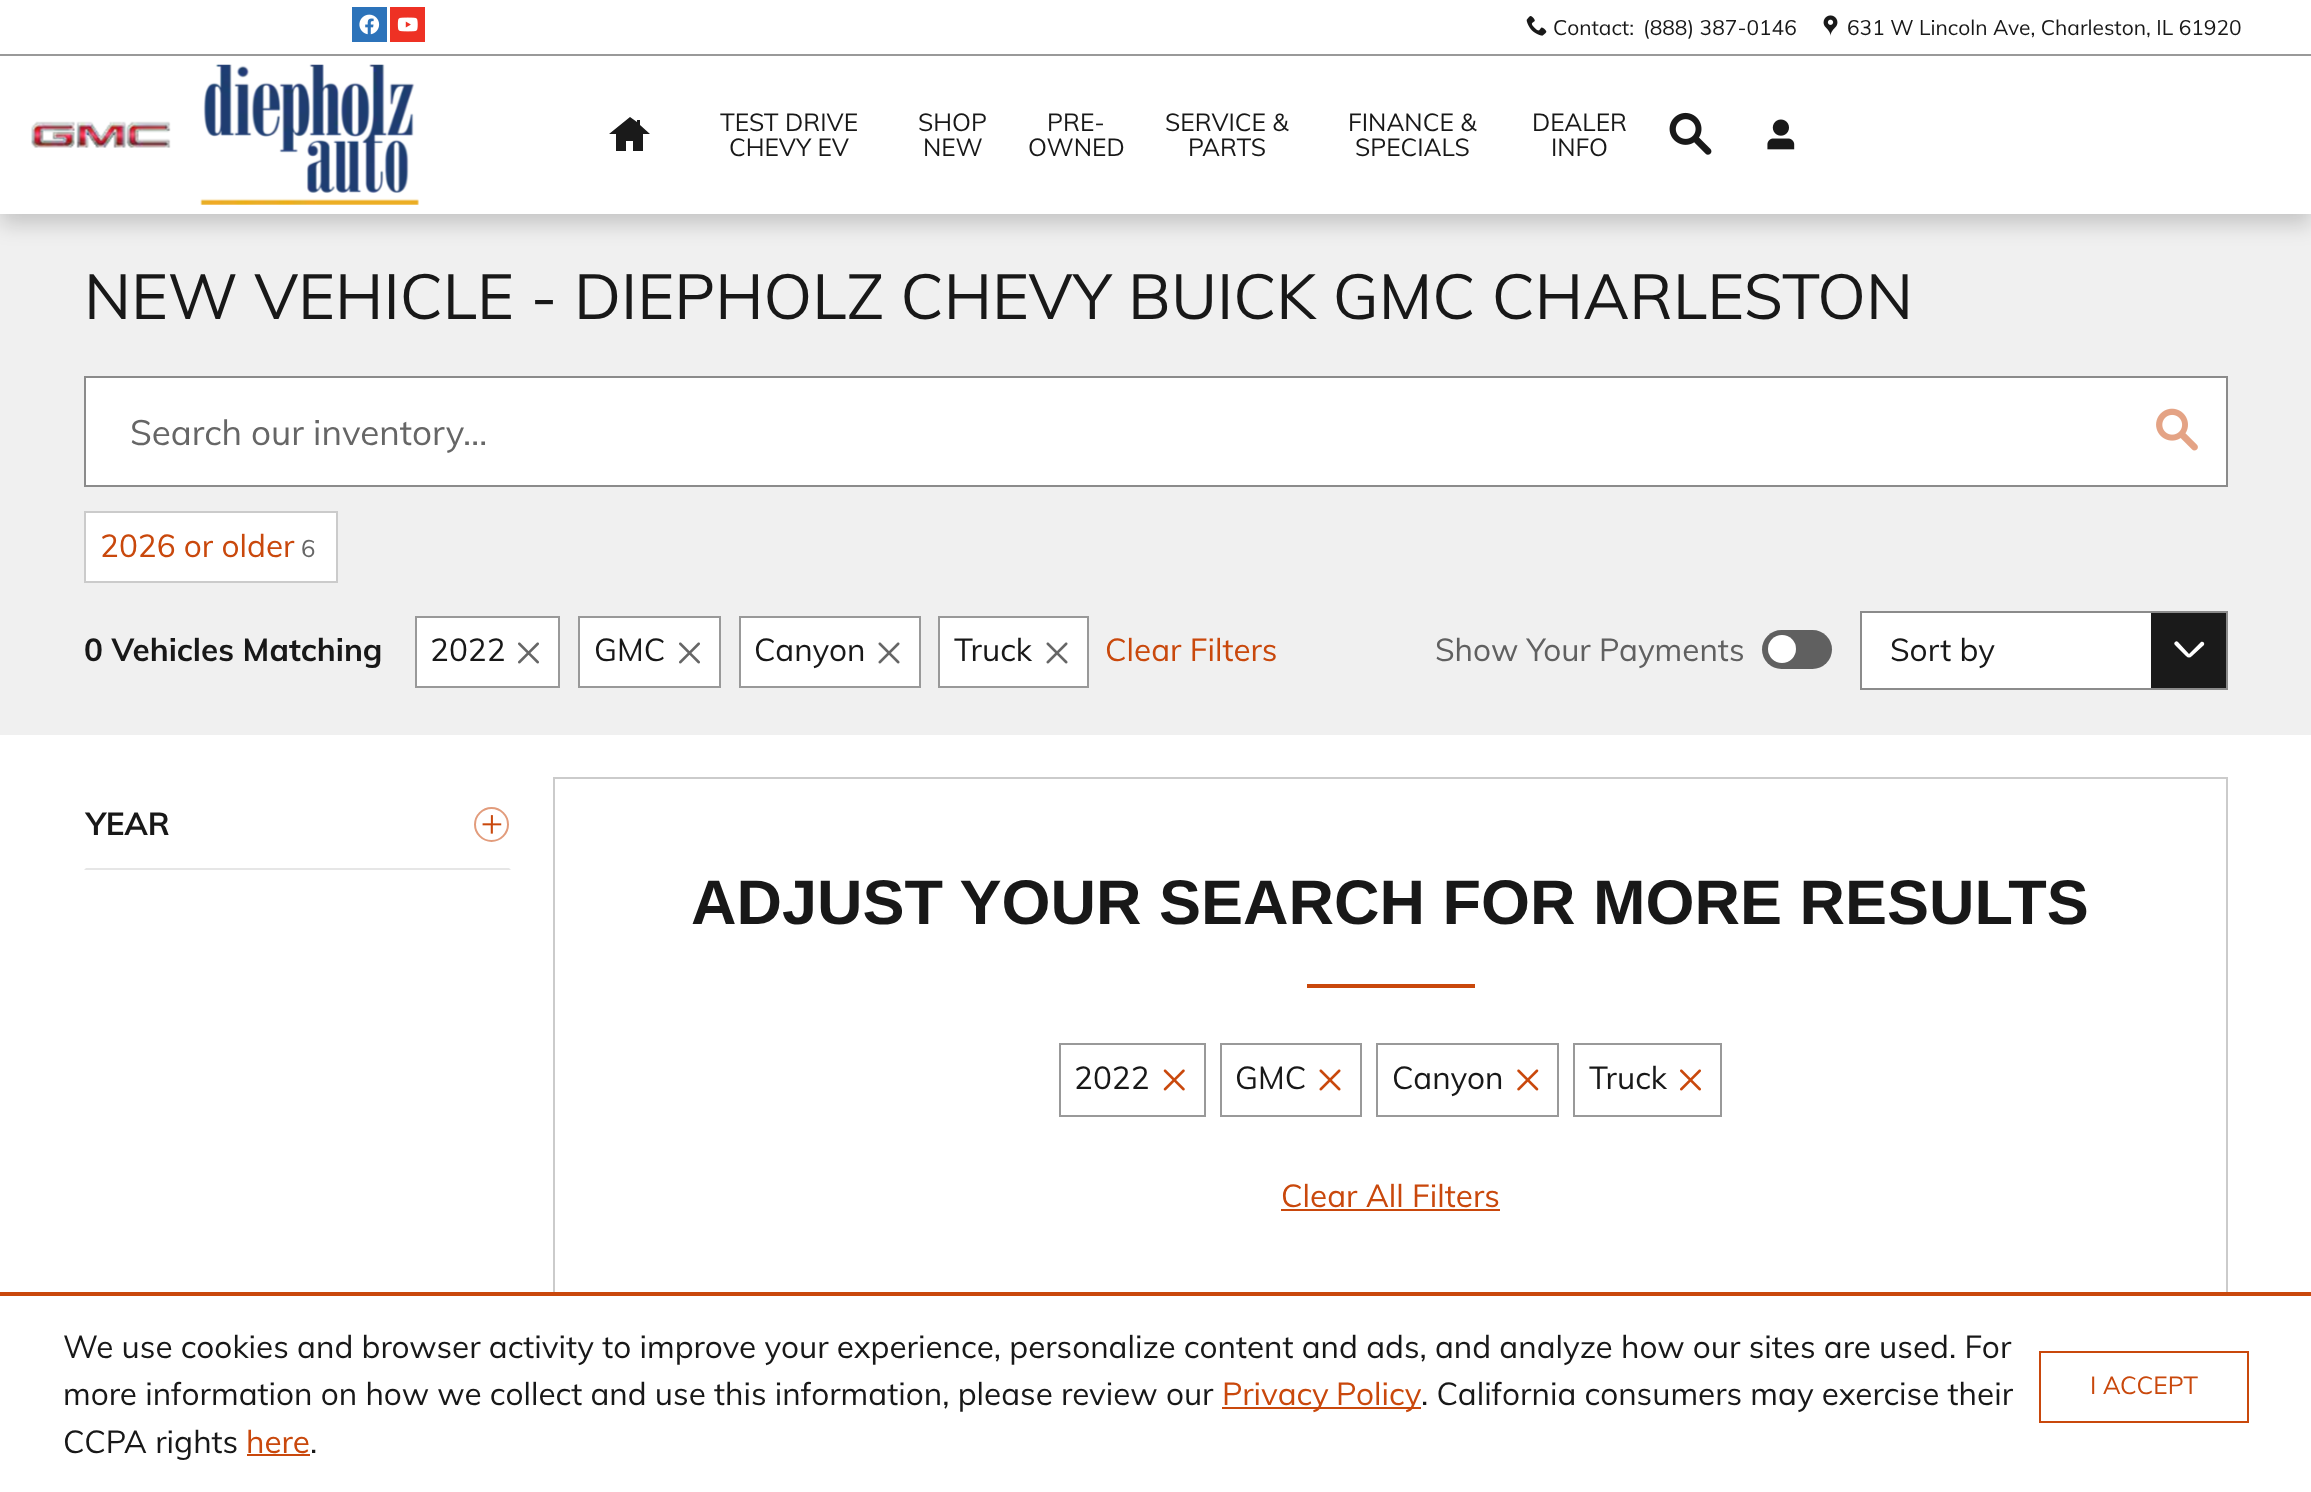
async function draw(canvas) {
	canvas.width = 2311;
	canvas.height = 1492;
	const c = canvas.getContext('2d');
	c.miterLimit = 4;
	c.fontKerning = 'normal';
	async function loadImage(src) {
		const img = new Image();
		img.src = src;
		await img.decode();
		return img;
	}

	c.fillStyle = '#fff';
	c.fillRect(0, 0, 2311, 1492);
	c.fillStyle = '#f0f0f0';
	c.fillRect(0, 214, 2311, 521);
	c.fillStyle = '#0000002e';
	c.filter = 'blur(10.5px)';
	c.beginPath();
	c.rect(0, 11, 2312, 213);
	c.fill();
	c.filter = 'none';
	c.fillStyle = '#fff';
	c.fillRect(0, 0, 2311, 214);
	c.fillStyle = '#999';
	c.fillRect(0, 54, 2311, 2);
	c.drawImage(await loadImage('img1.png'), 352, 7, 35, 35);
	c.drawImage(await loadImage('img2.png'), 390, 7, 35, 35);
	c.drawImage(await loadImage('img3.png'), 1526, 16, 21, 20);
	c.font = '21px Muli';
	c.fillStyle = '#181818';
	c.fillText('Contact:', 1553, 35);
	c.fillText('(888) 387-0146', 1643, 35);
	c.drawImage(await loadImage('img4.png'), 1823, 15, 15, 21);
	c.fillText('631 W Lincoln Ave, Charleston, IL 61920', 1847, 35);
	c.drawImage(await loadImage('img5.png'), 31, 121, 140, 27);
	c.drawImage(await loadImage('img6.png'), 200, 64, 219, 141);
	c.fillStyle = '#1a1a1a';
	c.beginPath();
	c.moveTo(640, 125);
	c.lineTo(640, 120);
	c.lineTo(637, 120);
	c.lineTo(637, 122);
	c.lineTo(630, 117);
	c.lineTo(609, 134);
	c.lineTo(616, 134);
	c.lineTo(616, 151);
	c.lineTo(626, 151);
	c.lineTo(626, 141);
	c.lineTo(633, 141);
	c.lineTo(633, 151);
	c.lineTo(643, 151);
	c.lineTo(643, 134);
	c.lineTo(650, 134);
	c.closePath();
	c.fill();
	c.font = '24.5px Muli';
	c.fillStyle = '#181818';
	for (const [text, x, y] of [
		['TEST DRIVE', 720, 131],
		['CHEVY EV', 729, 156],
		['SHOP', 918, 131],
		['NEW', 923, 156],
		['PRE-', 1047, 131],
		['OWNED', 1028, 156],
		['SERVICE &', 1165, 131],
		['PARTS', 1188, 156],
		['FINANCE &', 1348, 131],
		['SPECIALS', 1355, 156],
		['DEALER', 1532, 131],
		['INFO', 1551, 156],
	]) {
		c.fillText(text, x, y);
	}
	c.drawImage(await loadImage('img7.png'), 1669, 112, 43, 43);
	c.drawImage(await loadImage('img8.png'), 1767, 119, 28, 31);
	c.font = '63px Muli';
	c.fillText('NEW VEHICLE - DIEPHOLZ CHEVY BUICK GMC CHARLESTON', 84, 319);
	c.fillStyle = '#fff';
	c.beginPath();
	c.rect(85, 377, 2142, 109);
	c.fill();
	c.strokeStyle = '#8b8b8b';
	c.lineWidth = 2;
	c.stroke();
	c.font = '35px Muli';
	c.fillStyle = '#666';
	c.fillText('Search our inventory…', 130, 445);
	c.drawImage(await loadImage('img9.png'), 2156, 408, 42, 43);
	c.fillStyle = '#fff';
	c.beginPath();
	c.rect(85, 512, 252, 70);
	c.fill();
	c.strokeStyle = '#cbcbcb';
	c.stroke();
	c.font = '31.5px Muli';
	c.fillStyle = '#c9480c';
	c.fillText('2026 or older', 100, 557);
	c.font = '24px Muli';
	c.fillStyle = '#666';
	c.fillText('6', 301, 557);
	c.font = 'bold 31.5px Muli';
	c.fillStyle = '#181818';
	c.fillText('0 Vehicles Matching', 84, 661);
	c.fillStyle = '#fff';
	c.beginPath();
	c.rect(416, 617, 143, 70);
	c.fill();
	c.strokeStyle = '#999';
	c.stroke();
	c.font = '31.5px Muli';
	c.fillStyle = '#181818';
	c.fillText('2022', 430, 661);
	c.drawImage(await loadImage('img10.png'), 518, 642, 21, 22);
	c.fillStyle = '#fff';
	c.beginPath();
	c.rect(579, 617, 141, 70);
	c.fill();
	c.stroke();
	c.fillStyle = '#181818';
	c.fillText('GMC', 594, 661);
	c.drawImage(await loadImage('img10.png'), 679, 642, 21, 22);
	c.fillStyle = '#fff';
	c.beginPath();
	c.rect(740, 617, 180, 70);
	c.fill();
	c.stroke();
	c.fillStyle = '#181818';
	c.fillText('Canyon', 754, 661);
	c.drawImage(await loadImage('img11.png'), 878, 642, 22, 22);
	c.fillStyle = '#fff';
	c.beginPath();
	c.rect(939, 617, 149, 70);
	c.fill();
	c.stroke();
	c.fillStyle = '#181818';
	c.fillText('Truck', 954, 661);
	c.drawImage(await loadImage('img11.png'), 1046, 642, 22, 22);
	c.fillStyle = '#c9480c';
	c.fillText('Clear Filters', 1105, 661);
	c.fillStyle = '#606060';
	c.fillText('Show Your Payments', 1435, 661);
	c.beginPath();
	c.roundRect(1762, 630, 70, 39, 19.5);
	c.fill();
	c.fillStyle = '#fff';
	c.beginPath();
	c.arc(1782, 649, 14, 0, 2 * Math.PI);
	c.fill();
	c.fillRect(1862, 613, 343, 75);
	c.fillStyle = '#1a1a1a';
	c.beginPath();
	c.moveTo(2151, 612);
	c.lineTo(2151, 688);
	c.lineTo(2226, 688);
	c.lineTo(2226, 612);
	c.closePath();
	c.moveTo(2204, 645);
	c.lineTo(2192, 656);
	c.bezierCurveTo(2190, 658, 2188, 658, 2186, 656);
	c.lineTo(2175, 645);
	c.bezierCurveTo(2174, 644, 2174, 643, 2175, 642);
	c.bezierCurveTo(2176, 641, 2177, 641, 2178, 642);
	c.lineTo(2189, 654);
	c.lineTo(2201, 642);
	c.bezierCurveTo(2203, 641, 2205, 643, 2204, 645);
	c.closePath();
	c.fill();
	c.strokeStyle = '#8b8b8b';
	c.strokeRect(1861, 612, 366, 77);
	c.fillStyle = '#181818';
	c.fillText('Sort by', 1890, 661);
	c.fillStyle = '#e6e6e6';
	c.beginPath();
	c.moveTo(511, 870);
	c.lineTo(84, 870);
	c.lineTo(86, 868);
	c.lineTo(509, 868);
	c.closePath();
	c.fill();
	c.font = 'bold 31.5px Muli';
	c.fillStyle = '#181818';
	c.fillText('YEAR', 86, 835);
	c.beginPath();
	c.arc(491.5, 824.5, 16.5, 0, 2 * Math.PI);
	c.strokeStyle = '#e29c7c';
	c.stroke();
	c.drawImage(await loadImage('img12.png'), 482, 815, 20, 19);
	c.strokeStyle = '#cbcbcb';
	c.strokeRect(554, 778, 1673, 527);
	c.font = 'bold 63px Liberation Sans';
	c.fillText('ADJUST YOUR SEARCH FOR MORE RESULTS', 691, 924);
	c.fillStyle = '#c9480c';
	c.fillRect(1307, 984, 168, 4);
	c.strokeStyle = '#999';
	c.strokeRect(1060, 1044, 145, 72);
	c.font = '31.5px Muli';
	c.fillStyle = '#181818';
	c.fillText('2022', 1074, 1089);
	c.drawImage(await loadImage('img13.png'), 1163, 1069, 22, 22);
	c.strokeRect(1221, 1044, 140, 72);
	c.fillText('GMC', 1235, 1089);
	c.drawImage(await loadImage('img14.png'), 1319, 1069, 22, 22);
	c.strokeRect(1377, 1044, 181, 72);
	c.fillText('Canyon', 1392, 1089);
	c.drawImage(await loadImage('img15.png'), 1517, 1069, 22, 22);
	c.strokeRect(1574, 1044, 147, 72);
	c.fillText('Truck', 1589, 1089);
	c.drawImage(await loadImage('img16.png'), 1680, 1069, 21, 22);
	c.fillStyle = '#c9480c';
	c.fillText('Clear All Filters', 1281, 1207);
	for (const [x, y, w, h, color] of [
		[1281, 1209, 219, 2, '#c9480c'],
		[553, 1296, 1675, 10, '#fff'],
		[0, 1292, 2311, 4, '#c9480c'],
	]) {
		c.fillStyle = color;
		c.fillRect(x, y, w, h);
	}
	c.fillStyle = '#181818';
	c.fillText('We use cookies and browser activity to improve your experience, personalize content and ads, and analyze how our sites are used. For', 63, 1358);
	c.fillText('more information on how we collect and use this information, please review our', 63, 1405);
	c.fillStyle = '#c9480c';
	c.fillRect(1222, 1407, 199, 2);
	c.wordSpacing = '-1px';
	c.fillText('Privacy Policy', 1222, 1405);
	c.wordSpacing = '0px';
	c.fillStyle = '#181818';
	c.fillText('. California consumers may exercise their', 1421, 1405);
	c.fillText('CCPA rights', 63, 1453);
	c.fillStyle = '#c9480c';
	c.fillText('here', 246, 1453);
	c.fillRect(247, 1454, 63, 2);
	c.fillStyle = '#181818';
	c.fillText('.', 310, 1453);
	c.strokeStyle = '#c9480c';
	c.strokeRect(2040, 1352, 208, 70);
	c.font = '24.5px Muli';
	c.fillStyle = '#c9480c';
	c.fillText('I ACCEPT', 2090, 1394);
}

draw(document.querySelector('canvas'));
